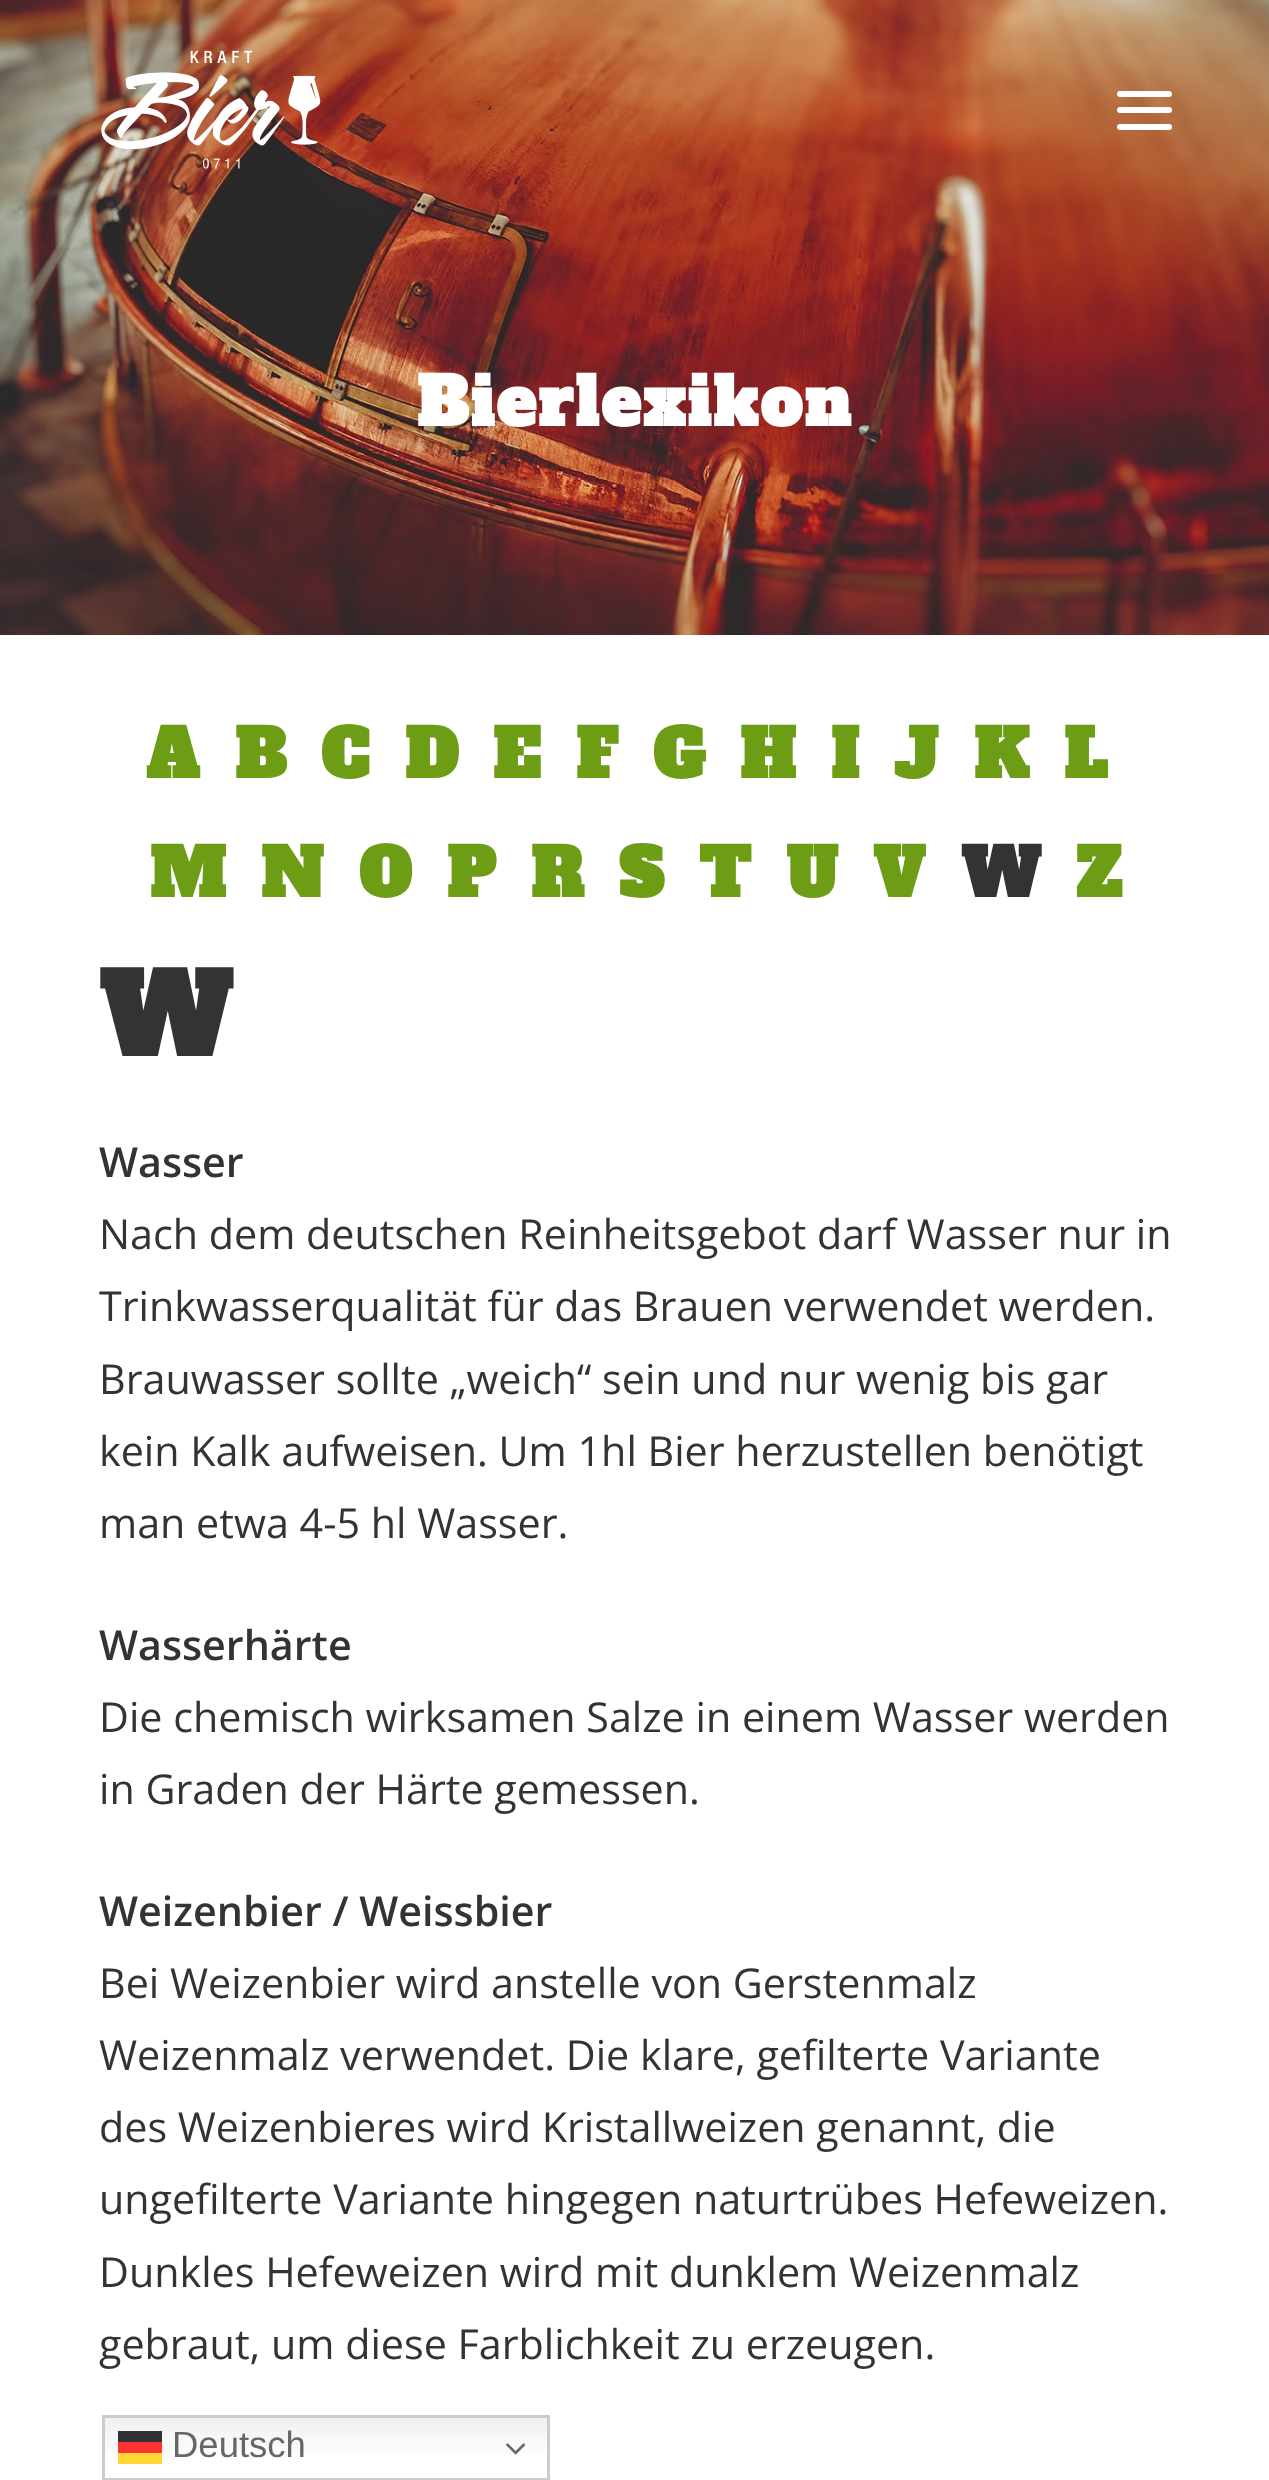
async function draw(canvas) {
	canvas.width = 1269;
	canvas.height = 2480;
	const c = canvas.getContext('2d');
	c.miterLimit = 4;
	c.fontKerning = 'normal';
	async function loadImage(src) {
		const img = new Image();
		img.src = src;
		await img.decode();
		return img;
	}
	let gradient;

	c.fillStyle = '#fff';
	c.fillRect(0, 0, 1269, 2480);
	c.drawImage(await loadImage('img2.png'), 0, 0, 1269, 635);
	c.drawImage(await loadImage('img1.png'), 101, 50, 220, 119);
	c.beginPath();
	c.roundRect(1117, 107, 55, 6, 3);
	c.fill();
	c.beginPath();
	c.roundRect(1117, 91, 55, 6, 3);
	c.fill();
	c.beginPath();
	c.roundRect(1117, 124, 55, 6, 3);
	c.fill();
	c.letterSpacing = '2.6px';
	c.font = 'bold 66px Alfa Slab One';
	c.fillText('Bierlexikon', 417, 426);
	c.letterSpacing = '-1px';
	c.fillStyle = '#6d9c15';
	for (const [text, x, y] of [
		['A', 146, 778],
		['B', 235, 778],
		['C', 321, 778],
		['D', 405, 778],
		['E', 493, 778],
		['F', 576, 778],
		['G', 653, 778],
		['H', 740, 778],
		['I', 831, 778],
		['J', 894, 778],
		['K', 974, 778],
		['L', 1064, 778],
		['M', 150, 897],
		['N', 261, 897],
		['O', 359, 897],
		['P', 447, 897],
		['R', 531, 897],
		['S', 619, 897],
		['T', 699, 897],
		['U', 786, 897],
		['V', 873, 897],
	]) {
		c.fillText(text, x, y);
	}
	c.fillStyle = '#333';
	c.fillText('W', 961, 897);
	c.fillStyle = '#6d9c15';
	c.fillText('Z', 1076, 897);
	c.letterSpacing = '2.6px';
	c.font = 'bold 110px Alfa Slab One';
	c.fillStyle = '#333';
	c.fillText('W', 99, 1056);
	c.letterSpacing = '0px';
	c.font = '600 41.25px Open Sans';
	c.fillText('Wasser', 99, 1177);
	c.font = '41.25px Open Sans';
	for (const [text, x, y] of [
		['Nach dem deutschen Reinheitsgebot darf Wasser nur in', 99, 1249],
		['Trinkwasserqualität für das Brauen verwendet werden.', 99, 1321],
		['Brauwasser sollte „weich“ sein und nur wenig bis gar', 99, 1394],
		['kein Kalk aufweisen. Um 1hl Bier herzustellen benötigt', 99, 1466],
		['man etwa 4-5 hl Wasser.', 99, 1538],
	]) {
		c.fillText(text, x, y);
	}
	c.font = '600 41.25px Open Sans';
	c.fillText('Wasserhärte', 99, 1660);
	c.font = '41.25px Open Sans';
	c.fillText('Die chemisch wirksamen Salze in einem Wasser werden', 99, 1732);
	c.fillText('in Graden der Härte gemessen.', 99, 1804);
	c.font = '600 41.25px Open Sans';
	c.fillText('Weizenbier / Weissbier', 99, 1926);
	c.font = '41.25px Open Sans';
	for (const [text, x, y] of [
		['Bei Weizenbier wird anstelle von Gerstenmalz', 99, 1998],
		['Weizenmalz verwendet. Die klare, gefilterte Variante', 99, 2070],
		['des Weizenbieres wird Kristallweizen genannt, die', 99, 2142],
		['ungefilterte Variante hingegen naturtrübes Hefeweizen.', 99, 2214],
		['Dunkles Hefeweizen wird mit dunklem Weizenmalz', 99, 2287],
		['gebraut, um diese Farblichkeit zu erzeugen.', 99, 2359],
	]) {
		c.fillText(text, x, y);
	}
	gradient = c.createLinearGradient(326, 2415, 326, 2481);
	gradient.addColorStop(0, '#efefef');
	gradient.addColorStop(0.7, '#fff');
	c.fillStyle = gradient;
	c.fillRect(105, 2418, 442, 36);
	gradient = c.createLinearGradient(326, 2415, 326, 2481);
	gradient.addColorStop(0, '#303030');
	gradient.addColorStop(0.7, '#333');
	c.fillStyle = gradient;
	c.fillRect(118, 2431, 44, 11);
	c.strokeStyle = '#ccc';
	c.lineWidth = 3;
	c.strokeRect(103.5, 2416.5, 445, 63);
	c.fillStyle = '#ff0000cc';
	c.fillRect(118, 2442, 44, 11);
	c.font = '36.5px Liberation Sans';
	c.fillStyle = '#666';
	c.fillText('Deutsch', 172, 2457);
	c.drawImage(await loadImage('img3.png'), 506, 2443, 19, 12);
	c.fillStyle = '#ffcc00cc';
	c.fillRect(118, 2453, 44, 11);
}

draw(document.querySelector('canvas'));
